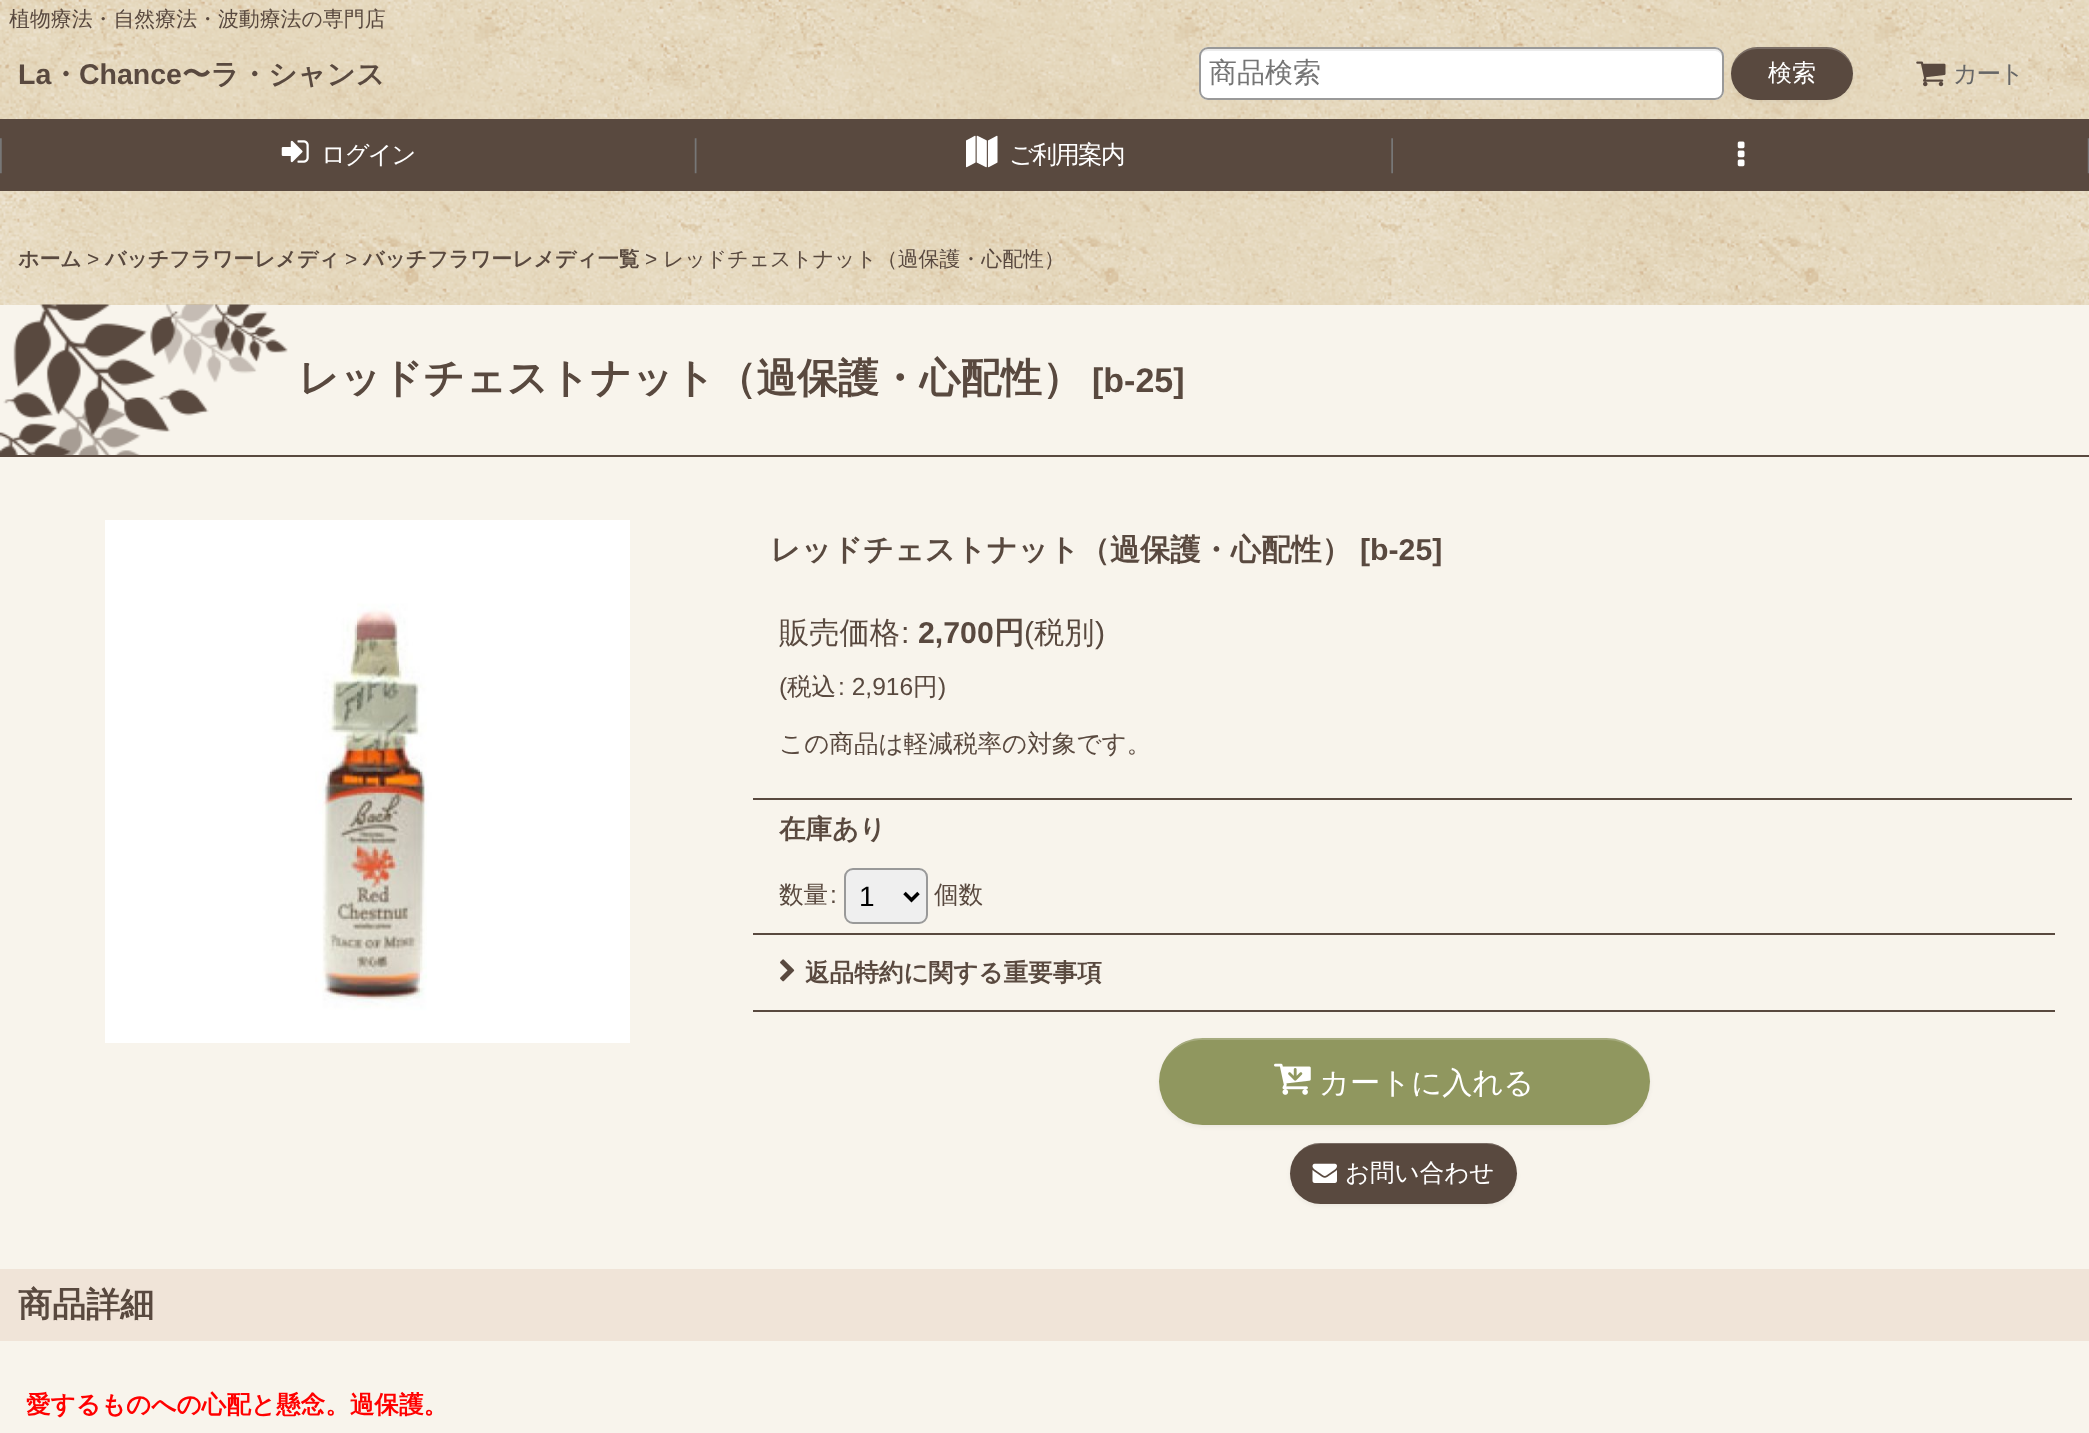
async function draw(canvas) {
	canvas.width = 2089;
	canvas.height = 1433;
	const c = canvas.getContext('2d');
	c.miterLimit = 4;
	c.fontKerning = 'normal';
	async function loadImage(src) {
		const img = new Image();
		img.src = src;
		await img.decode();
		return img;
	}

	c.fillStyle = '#fff';
	c.fillRect(0, 0, 2089, 1433);
	c.drawImage(await loadImage('img1.png'), 0, 0, 2089, 305);
	c.font = '500 20.9px WenQuanYi Zen Hei';
	c.fillStyle = '#59493f';
	c.fillText('植物療法・自然療法・波動療法の専門店', 9, 26);
	c.fillStyle = '#fff';
	c.beginPath();
	c.roundRect(1199, 47, 525, 53, 9);
	c.fill();
	c.fillStyle = '#ececec';
	c.beginPath();
	c.moveTo(1208, 51);
	c.lineTo(1715, 51);
	c.bezierCurveTo(1719, 51, 1722, 54, 1722, 58);
	c.lineTo(1722, 56);
	c.bezierCurveTo(1722, 52, 1719, 49, 1715, 49);
	c.lineTo(1208, 49);
	c.bezierCurveTo(1205, 49, 1202, 51, 1201, 54);
	c.bezierCurveTo(1203, 52, 1205, 51, 1208, 51);
	c.closePath();
	c.fill();
	c.beginPath();
	c.roundRect(1200, 48, 523, 51, 8);
	c.strokeStyle = '#999';
	c.lineWidth = 2;
	c.stroke();
	c.font = '500 28px WenQuanYi Zen Hei';
	c.fillStyle = '#757575';
	c.fillText('商品検索', 1209, 82);
	c.fillStyle = '#0000000d';
	c.filter = 'blur(2px)';
	c.beginPath();
	c.roundRect(1731, 49, 122, 53, 26.5);
	c.fill();
	c.filter = 'none';
	c.fillStyle = '#59493f';
	c.beginPath();
	c.roundRect(1731, 47, 122, 53, 26.5);
	c.fill();
	c.fillStyle = '#ffffff33';
	c.beginPath();
	c.moveTo(1757, 49);
	c.lineTo(1827, 49);
	c.bezierCurveTo(1841, 49, 1853, 61, 1853, 74);
	c.bezierCurveTo(1853, 59, 1841, 47, 1826, 47);
	c.lineTo(1758, 47);
	c.bezierCurveTo(1743, 47, 1731, 59, 1731, 74);
	c.bezierCurveTo(1731, 61, 1743, 49, 1757, 49);
	c.closePath();
	c.fill();
	c.font = '500 24px WenQuanYi Zen Hei';
	c.fillStyle = '#fff';
	c.fillText('検索', 1768, 81);
	c.font = 'bold 28.5px Liberation Sans';
	c.fillStyle = '#59493f';
	c.fillText('La', 18, 84);
	c.font = 'bold 28.5px WenQuanYi Zen Hei';
	c.fillText('・', 51, 84);
	c.font = 'bold 28.5px Liberation Sans';
	c.fillText('Chance', 79, 84);
	c.font = 'bold 28.5px WenQuanYi Zen Hei';
	c.fillText('〜ラ・シャンス', 182, 84);
	c.drawImage(await loadImage('img2.png'), 1916, 61, 30, 26);
	c.letterSpacing = '-1.75px';
	c.font = '500 24.6px WenQuanYi Zen Hei';
	c.fillStyle = '#666';
	c.fillText('カート', 1953, 82);
	c.fillStyle = '#59493f';
	c.fillRect(0, 119, 2089, 72);
	c.drawImage(await loadImage('img3.png'), 0, 138, 697, 36);
	c.drawImage(await loadImage('img4.png'), 281, 140, 28, 23);
	c.fillStyle = '#fff';
	c.fillText('ログイン', 321, 163);
	c.drawImage(await loadImage('img5.png'), 1391, 138, 2, 36);
	c.drawImage(await loadImage('img6.png'), 966, 135, 32, 33);
	c.fillText('ご利用案内', 1009, 163);
	c.drawImage(await loadImage('img7.png'), 2087, 138, 2, 36);
	c.drawImage(await loadImage('img8.png'), 1737, 141, 8, 26);
	c.letterSpacing = '0px';
	c.font = 'bold 20.9px WenQuanYi Zen Hei';
	c.fillStyle = '#59493f';
	c.fillText('ホーム', 18, 266);
	c.font = '20.9px Liberation Sans';
	c.fillText('>', 87, 266);
	c.font = 'bold 20.9px WenQuanYi Zen Hei';
	c.fillText('バッチフラワーレメディ', 105, 266);
	c.font = '20.9px Liberation Sans';
	c.fillText('>', 345, 266);
	c.font = 'bold 20.9px WenQuanYi Zen Hei';
	c.fillText('バッチフラワーレメディ一覧', 363, 266);
	c.font = '20.9px Liberation Sans';
	c.fillText('>', 645, 266);
	c.font = '500 20.9px WenQuanYi Zen Hei';
	c.fillText('レッドチェストナット（過保護・心配性）', 663, 266);
	c.fillStyle = '#f8f4ec';
	c.fillRect(0, 305, 2089, 1128);
	c.drawImage(await loadImage('img9.png'), 0, 304, 288, 151);
	c.fillStyle = '#59493f';
	c.fillRect(0, 455, 2089, 2);
	c.font = 'bold 40.8px WenQuanYi Zen Hei';
	c.fillText('レッドチェストナット（過保護・心配性）', 298, 392);
	c.font = 'bold 34px Liberation Sans';
	c.fillText('[b-25]', 1092, 392);
	c.drawImage(await loadImage('img10.png'), 105, 520, 525, 523);
	c.font = 'bold 30.25px WenQuanYi Zen Hei';
	c.fillText('レッドチェストナット（過保護・心配性）', 770, 560);
	c.font = 'bold 30.25px Liberation Sans';
	c.fillText('[b-25]', 1360, 560);
	c.fillRect(753, 798, 1319, 2);
	c.font = '500 30.25px WenQuanYi Zen Hei';
	c.fillText('販売価格', 779, 643);
	c.font = '30.25px Liberation Sans';
	c.fillText(':', 901, 643);
	c.font = 'bold 30.25px Liberation Sans';
	c.fillText('2,700', 918, 643);
	c.font = 'bold 30.25px WenQuanYi Zen Hei';
	c.fillText('円', 994, 643);
	c.font = '30.25px Liberation Sans';
	c.fillText('(', 1024, 643);
	c.font = '500 30.25px WenQuanYi Zen Hei';
	c.fillText('税別', 1034, 643);
	c.font = '30.25px Liberation Sans';
	c.fillText(')', 1095, 643);
	c.font = '24.6px Liberation Sans';
	c.fillText('(', 779, 695);
	c.font = '500 24.6px WenQuanYi Zen Hei';
	c.fillText('税込', 787, 695);
	c.font = '24.6px Liberation Sans';
	c.fillText(': 2,916', 838, 695);
	c.font = '500 24.6px WenQuanYi Zen Hei';
	c.fillText('円', 913, 695);
	c.font = '24.6px Liberation Sans';
	c.fillText(')', 938, 695);
	c.font = '500 24.6px WenQuanYi Zen Hei';
	c.fillText('この商品は軽減税率の対象です。', 779, 752);
	c.font = 'bold 26.5px WenQuanYi Zen Hei';
	c.fillText('在庫あり', 779, 838);
	c.fillRect(753, 933, 1302, 2);
	c.font = '500 24.6px WenQuanYi Zen Hei';
	c.fillText('数量', 779, 903);
	c.font = '24.6px Liberation Sans';
	c.fillText(':', 830, 903);
	c.fillStyle = '#efefef';
	c.beginPath();
	c.roundRect(845, 869, 82, 54, 8);
	c.fill();
	c.stroke();
	c.beginPath();
	c.moveTo(904.5, 893);
	c.lineTo(911.5, 900);
	c.lineTo(918.5, 893);
	c.strokeStyle = '#000';
	c.lineWidth = 3.5;
	c.stroke();
	c.font = '28px Liberation Sans';
	c.fillStyle = '#000';
	c.fillText('1', 859, 906);
	c.font = '500 24.6px WenQuanYi Zen Hei';
	c.fillStyle = '#59493f';
	c.fillText('個数', 934, 903);
	c.fillRect(753, 1010, 1302, 2);
	c.drawImage(await loadImage('img11.png'), 780, 959, 15, 23);
	c.font = 'bold 24.6px WenQuanYi Zen Hei';
	c.fillText('返品特約に関する重要事項', 805, 981);
	c.fillStyle = '#0000000d';
	c.filter = 'blur(2px)';
	c.beginPath();
	c.roundRect(1159, 1040, 491, 87, 43.5);
	c.fill();
	c.filter = 'none';
	c.fillStyle = '#90975f';
	c.beginPath();
	c.roundRect(1159, 1038, 491, 87, 43.5);
	c.fill();
	c.fillStyle = '#ffffff33';
	c.beginPath();
	c.moveTo(1202, 1040);
	c.lineTo(1606, 1040);
	c.bezierCurveTo(1631, 1040, 1650, 1059, 1650, 1082);
	c.bezierCurveTo(1650, 1057, 1631, 1038, 1606, 1038);
	c.lineTo(1202, 1038);
	c.bezierCurveTo(1186, 1038, 1171, 1048, 1164, 1062);
	c.bezierCurveTo(1171, 1049, 1186, 1040, 1202, 1040);
	c.closePath();
	c.fill();
	c.drawImage(await loadImage('img12.png'), 1274, 1063, 37, 32);
	c.font = '500 30.25px WenQuanYi Zen Hei';
	c.fillStyle = '#fff';
	c.fillText('カートに入れる', 1319, 1093);
	c.fillStyle = '#0000000d';
	c.filter = 'blur(2px)';
	c.beginPath();
	c.roundRect(1290, 1145, 227, 61, 30.5);
	c.fill();
	c.filter = 'none';
	c.fillStyle = '#59493f';
	c.beginPath();
	c.roundRect(1290, 1143, 227, 61, 30.5);
	c.fill();
	c.fillStyle = '#ffffff33';
	c.beginPath();
	c.moveTo(1320, 1144);
	c.lineTo(1487, 1144);
	c.bezierCurveTo(1504, 1144, 1517, 1158, 1517, 1174);
	c.bezierCurveTo(1517, 1157, 1503, 1143, 1486, 1143);
	c.lineTo(1320, 1143);
	c.bezierCurveTo(1304, 1143, 1290, 1157, 1290, 1174);
	c.bezierCurveTo(1290, 1158, 1303, 1144, 1320, 1144);
	c.closePath();
	c.fill();
	c.drawImage(await loadImage('img13.png'), 1312, 1163, 25, 20);
	c.font = '500 24.5px WenQuanYi Zen Hei';
	c.fillStyle = '#fff';
	c.fillText('お問い合わせ', 1345, 1181);
	c.fillStyle = '#f0e4d8';
	c.fillRect(0, 1269, 2089, 72);
	c.font = 'bold 34px WenQuanYi Zen Hei';
	c.fillStyle = '#59493f';
	c.fillText('商品詳細', 18, 1316);
	c.font = 'bold 24.6px WenQuanYi Zen Hei';
	c.fillStyle = '#f00';
	c.fillText('愛するものへの心配と懸念。過保護。', 26, 1413);
}

draw(document.querySelector('canvas'));
